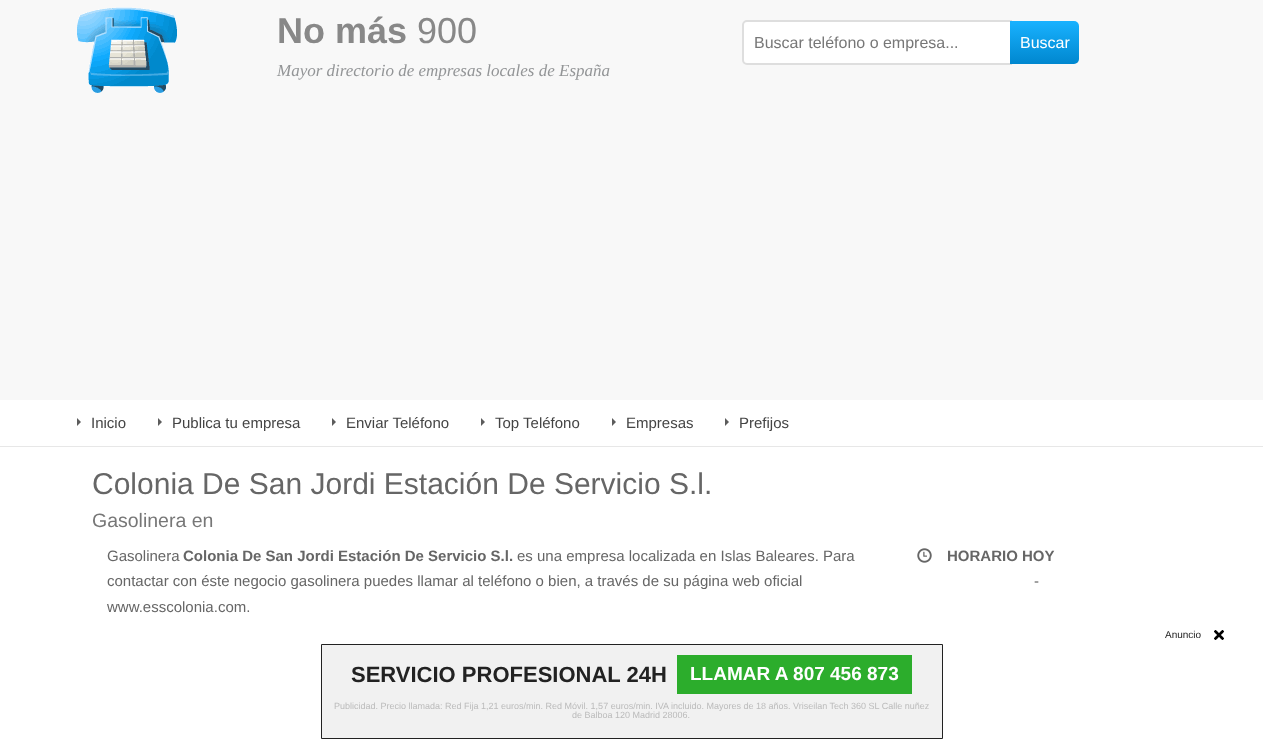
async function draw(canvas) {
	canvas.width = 1263;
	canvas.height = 742;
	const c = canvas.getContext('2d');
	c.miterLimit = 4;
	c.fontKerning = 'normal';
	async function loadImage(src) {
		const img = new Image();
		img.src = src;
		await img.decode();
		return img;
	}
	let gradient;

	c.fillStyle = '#fff';
	c.fillRect(0, 0, 1263, 742);
	c.fillStyle = '#f8f8f8';
	c.fillRect(0, 0, 1263, 400);
	c.fillStyle = '#e7e7e7';
	c.fillRect(0, 446, 1263, 1);
	c.drawImage(await loadImage('img1.png'), 77, 7, 100, 86);
	c.font = 'bold 36px Liberation Sans';
	c.fillStyle = '#888';
	c.fillText('No más', 277, 43);
	c.font = '36px Liberation Sans';
	c.fillText('900', 417, 43);
	c.font = 'italic 17px Liberation Serif';
	c.fillStyle = '#939597';
	c.fillText('Mayor directorio de empresas locales de España', 277, 76);
	c.fillStyle = '#fff';
	c.beginPath();
	c.roundRect(743, 21, 268, 43, [4, 0, 0, 4]);
	c.fill();
	c.strokeStyle = '#dedede';
	c.lineWidth = 2;
	c.stroke();
	c.font = '16px Liberation Sans';
	c.fillStyle = '#777';
	c.fillText('Buscar teléfono o empresa...', 754, 48);
	gradient = c.createLinearGradient(1010, 21, 1010, 64);
	gradient.addColorStop(0, '#19b2ff');
	gradient.addColorStop(1, '#0087cf');
	c.fillStyle = gradient;
	c.beginPath();
	c.roundRect(1010, 21, 69, 43, [0, 5, 5, 0]);
	c.fill();
	c.fillStyle = '#fff';
	c.fillText('Buscar', 1020, 48);
	c.fillStyle = '#5c5c5c';
	c.beginPath();
	c.moveTo(77, 426);
	c.lineTo(77, 418);
	c.lineTo(81, 422);
	c.closePath();
	c.fill();
	c.font = '15px Liberation Sans';
	c.fillStyle = '#444';
	c.fillText('Inicio', 91, 428);
	c.fillStyle = '#5c5c5c';
	c.beginPath();
	c.moveTo(158, 426);
	c.lineTo(158, 418);
	c.lineTo(162, 422);
	c.closePath();
	c.fill();
	c.fillStyle = '#444';
	c.fillText('Publica tu empresa', 172, 428);
	c.fillStyle = '#5c5c5c';
	c.beginPath();
	c.moveTo(332, 426);
	c.lineTo(332, 418);
	c.lineTo(336, 422);
	c.closePath();
	c.fill();
	c.fillStyle = '#444';
	c.fillText('Enviar Teléfono', 346, 428);
	c.fillStyle = '#5c5c5c';
	c.beginPath();
	c.moveTo(481, 426);
	c.lineTo(481, 418);
	c.lineTo(485, 422);
	c.closePath();
	c.fill();
	c.fillStyle = '#444';
	c.fillText('Top Teléfono', 495, 428);
	c.fillStyle = '#5c5c5c';
	c.beginPath();
	c.moveTo(612, 426);
	c.lineTo(612, 418);
	c.lineTo(616, 422);
	c.closePath();
	c.fill();
	c.fillStyle = '#444';
	c.fillText('Empresas', 626, 428);
	c.fillStyle = '#5c5c5c';
	c.beginPath();
	c.moveTo(725, 426);
	c.lineTo(725, 418);
	c.lineTo(729, 422);
	c.closePath();
	c.fill();
	c.fillStyle = '#444';
	c.fillText('Prefijos', 739, 428);
	c.font = '30px Liberation Sans';
	c.fillStyle = '#666';
	c.fillText('Colonia De San Jordi Estación De Servicio S.l.', 92, 494);
	c.font = '19.5px Liberation Sans';
	c.fillStyle = '#777';
	c.fillText('Gasolinera en', 92, 527);
	c.font = '15px Liberation Sans';
	c.fillStyle = '#666';
	c.fillText('Gasolinera', 107, 561);
	c.font = 'bold 15px Liberation Sans';
	c.fillText('Colonia De San Jordi Estación De Servicio S.l.', 183, 561);
	c.font = '15px Liberation Sans';
	for (const [text, x, y] of [
		['es una empresa localizada en Islas Baleares. Para', 517, 561],
		['contactar con éste negocio gasolinera puedes llamar al teléfono o bien, a través de su página web oficial', 107, 586],
		['www.esscolonia.com.', 107, 612],
	]) {
		c.fillText(text, x, y);
	}
	c.drawImage(await loadImage('img2.png'), 917, 548, 15, 15);
	c.font = 'bold 15px Liberation Sans';
	c.fillText('HORARIO HOY', 947, 561);
	c.font = '15px Liberation Sans';
	c.fillText('-', 1034, 586);
	c.font = '10px Liberation Sans';
	c.fillStyle = '#222';
	c.fillText('Anuncio', 1165, 638);
	c.drawImage(await loadImage('img3.png'), 1214, 630, 10, 10);
	c.fillStyle = '#f1f1f1';
	c.beginPath();
	c.rect(321.5, 644.5, 621, 94);
	c.fill();
	c.strokeStyle = '#222';
	c.lineWidth = 1;
	c.stroke();
	c.font = 'bold 22px Liberation Sans';
	c.fillStyle = '#222';
	c.fillText('SERVICIO PROFESIONAL 24H', 351, 682);
	c.fillStyle = '#2cad2c';
	c.fillRect(677, 655, 235, 39);
	c.font = 'bold 19px Liberation Sans';
	c.fillStyle = '#fff';
	c.fillText('LLAMAR A 807 456 873', 690, 680);
	c.font = '9px Liberation Sans';
	c.fillStyle = '#bbb';
	c.fillText('Publicidad. Precio llamada: Red Fija 1,21 euros/min. Red Móvil. 1,57 euros/min. IVA incluido. Mayores de 18 años. Vriseilan Tech 360 SL Calle nuñez', 334, 709);
	c.fillText('de Balboa 120 Madrid 28006.', 572, 718);
}

draw(document.querySelector('canvas'));
